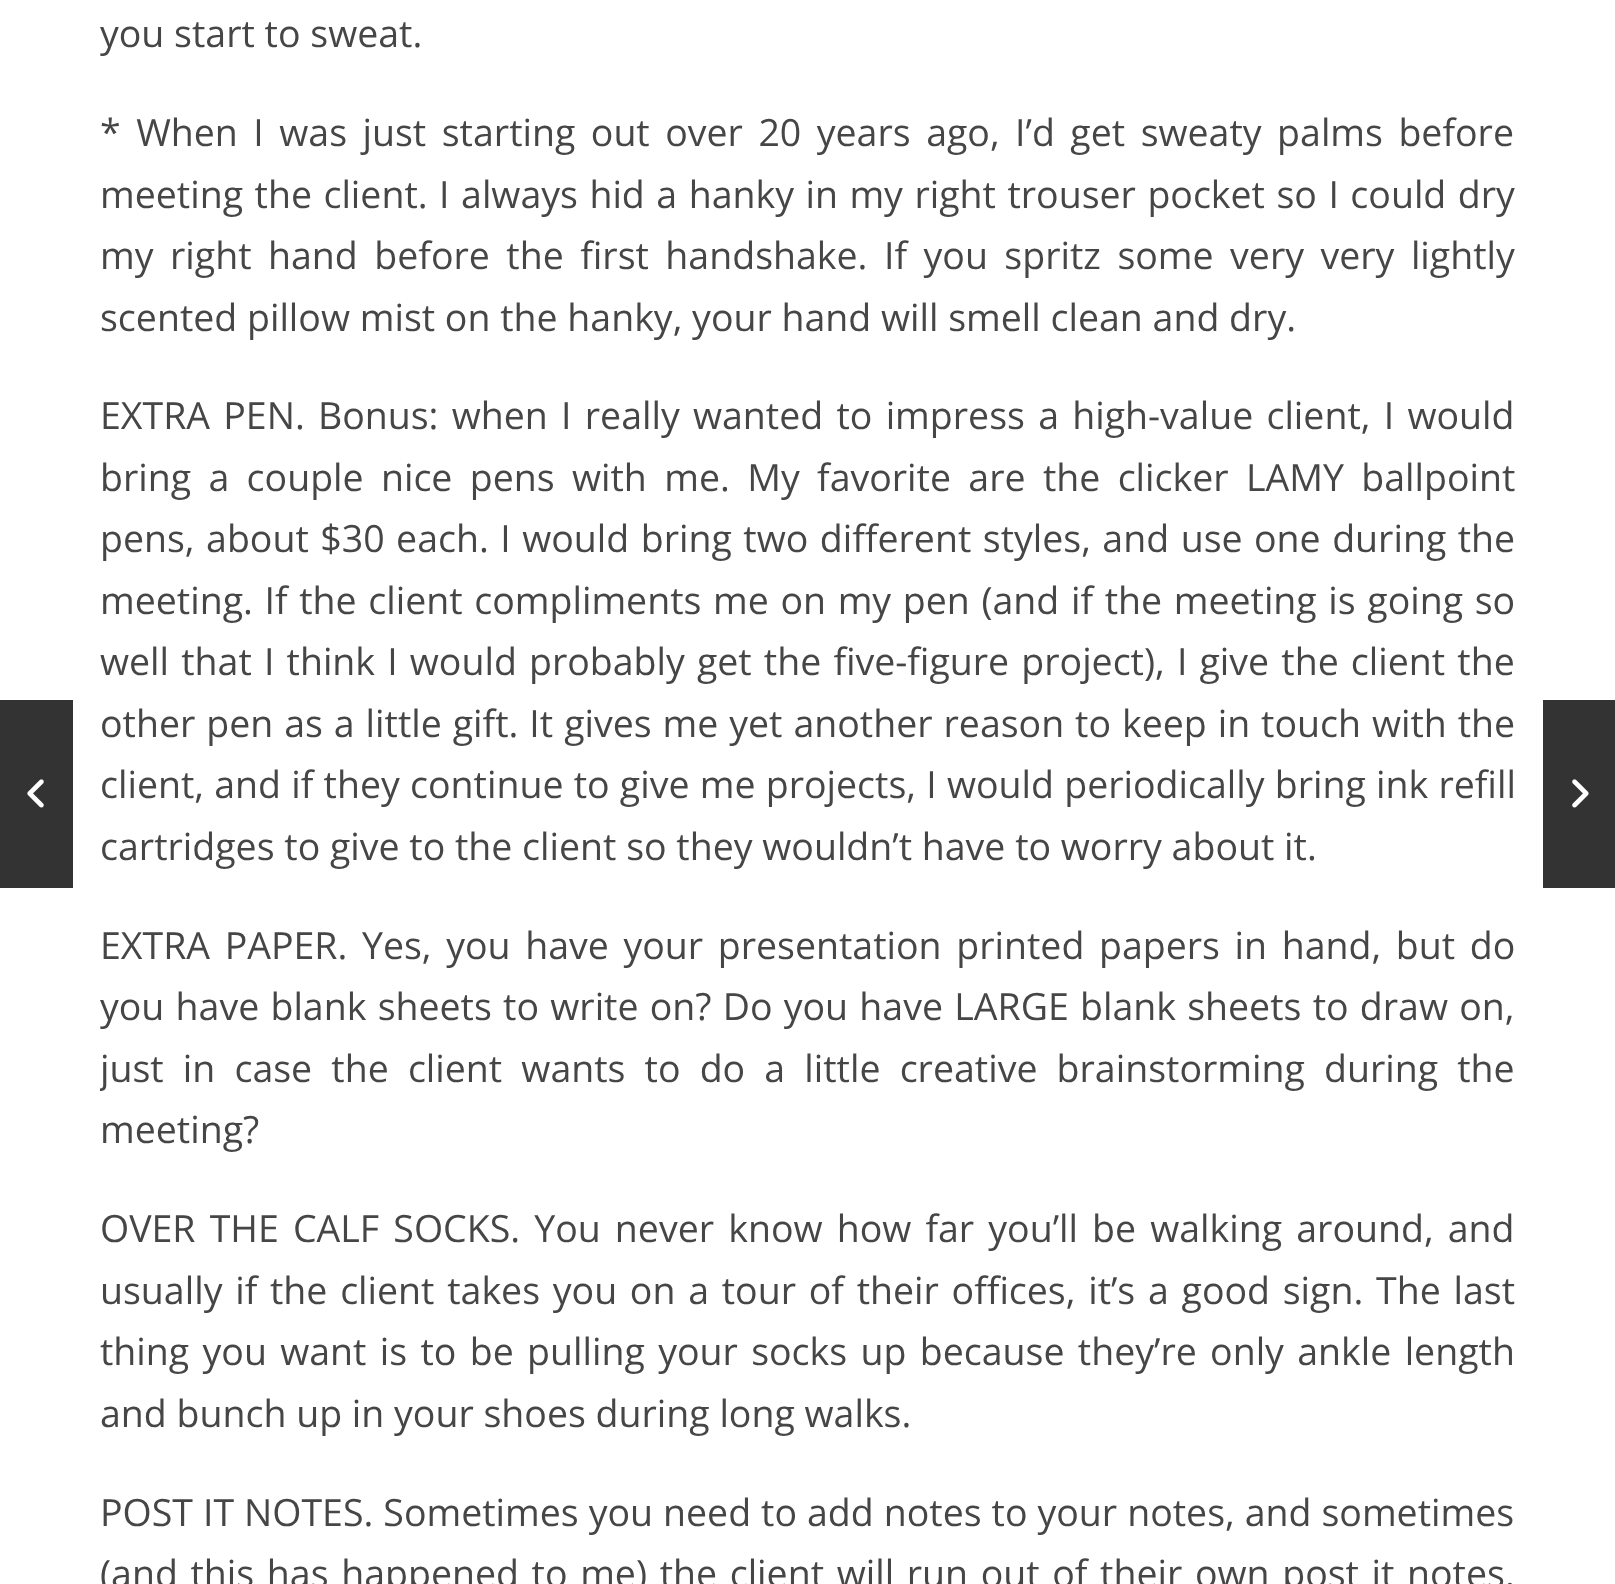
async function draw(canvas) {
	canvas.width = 1615;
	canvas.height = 1584;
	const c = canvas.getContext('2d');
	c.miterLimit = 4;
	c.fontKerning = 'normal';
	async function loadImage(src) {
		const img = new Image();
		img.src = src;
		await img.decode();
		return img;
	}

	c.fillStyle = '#fff';
	c.fillRect(0, 0, 1615, 1584);
	c.fillStyle = '#333';
	c.fillRect(0, 700, 73, 188);
	c.drawImage(await loadImage('img1.png'), 27, 779, 17, 29);
	c.font = '37.5px Open Sans';
	c.fillStyle = '#464646';
	c.fillText('you start to sweat.', 100, 47);
	c.wordSpacing = '5.75px';
	c.fillText('* When I was just starting out over 20 years ago, I’d get sweaty palms before', 100, 146);
	c.wordSpacing = '1.75px';
	c.fillText('meeting the client. I always hid a hanky in my right trouser pocket so I could dry', 100, 208);
	c.wordSpacing = '6.75px';
	c.fillText('my right hand before the first handshake. If you spritz some very very lightly', 100, 269);
	c.wordSpacing = '0px';
	c.fillText('scented pillow mist on the hanky, your hand will smell clean and dry.', 100, 331);
	c.wordSpacing = '3.5px';
	c.fillText('EXTRA PEN. Bonus: when I really wanted to impress a high-value client, I would', 100, 429);
	c.wordSpacing = '7.6px';
	c.fillText('bring a couple nice pens with me. My favorite are the clicker LAMY ballpoint', 100, 491);
	c.wordSpacing = '1.75px';
	c.fillText('pens, about $30 each. I would bring two different styles, and use one during the', 100, 552);
	c.wordSpacing = '1.9px';
	c.fillText('meeting. If the client compliments me on my pen (and if the meeting is going so', 100, 614);
	c.wordSpacing = '2.4px';
	c.fillText('well that I think I would probably get the five-figure project), I give the client the', 100, 675);
	c.wordSpacing = '1.2px';
	c.fillText('other pen as a little gift. It gives me yet another reason to keep in touch with the', 100, 737);
	c.wordSpacing = '0.5px';
	c.fillText('client, and if they continue to give me projects, I would periodically bring ink refill', 100, 798);
	c.wordSpacing = '0px';
	c.fillText('cartridges to give to the client so they wouldn’t have to worry about it.', 100, 860);
	c.wordSpacing = '4.9px';
	c.fillText('EXTRA PAPER. Yes, you have your presentation printed papers in hand, but do', 100, 959);
	c.wordSpacing = '1.5px';
	c.fillText('you have blank sheets to write on? Do you have LARGE blank sheets to draw on,', 100, 1020);
	c.save();
	c.beginPath();
	c.rect(100, 0, 1415, 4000);
	c.clip();
	c.wordSpacing = '9.4px';
	c.fillText('just in case the client wants to do a little creative brainstorming during the', 100, 1082);
	c.restore();
	c.wordSpacing = '0px';
	c.fillText('meeting?', 100, 1143);
	c.wordSpacing = '4.4px';
	c.fillText('OVER THE CALF SOCKS. You never know how far you’ll be walking around, and', 100, 1242);
	c.wordSpacing = '3px';
	c.fillText('usually if the client takes you on a tour of their offices, it’s a good sign. The last', 100, 1304);
	c.wordSpacing = '3.6px';
	c.fillText('thing you want is to be pulling your socks up because they’re only ankle length', 100, 1365);
	c.wordSpacing = '0px';
	c.fillText('and bunch up in your shoes during long walks.', 100, 1427);
	c.wordSpacing = '0.25px';
	c.fillText('POST IT NOTES. Sometimes you need to add notes to your notes, and sometimes', 100, 1526);
	c.wordSpacing = '2.9px';
	c.fillText('(and this has happened to me) the client will run out of their own post it notes.', 100, 1587);
	c.fillStyle = '#333';
	c.fillRect(1543, 700, 72, 188);
	c.drawImage(await loadImage('img2.png'), 1572, 779, 17, 29);
}

draw(document.querySelector('canvas'));
